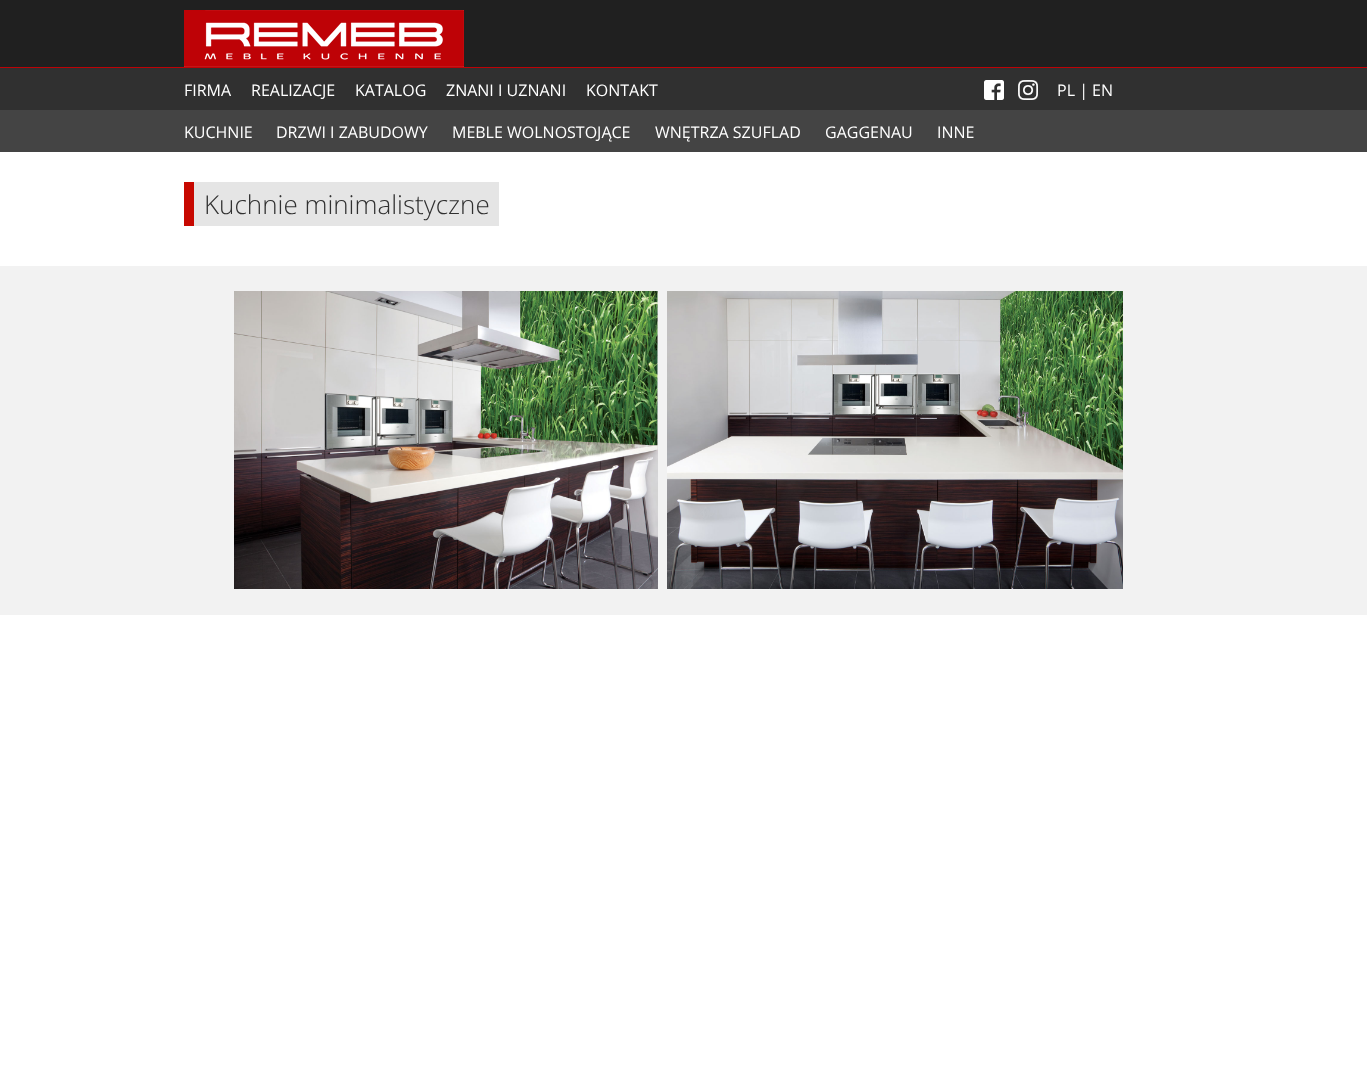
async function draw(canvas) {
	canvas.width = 1367;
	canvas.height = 1089;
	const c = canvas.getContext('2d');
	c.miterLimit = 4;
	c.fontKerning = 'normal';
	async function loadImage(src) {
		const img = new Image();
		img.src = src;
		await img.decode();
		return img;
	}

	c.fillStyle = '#fff';
	c.fillRect(0, 0, 1367, 1089);
	c.fillStyle = '#202020';
	c.fillRect(0, 0, 1367, 67);
	c.fillStyle = '#be0206';
	c.fillRect(0, 67, 1367, 1);
	c.drawImage(await loadImage('img1.png'), 184, 10, 280, 57);
	c.fillStyle = '#303030';
	c.fillRect(0, 68, 1367, 42);
	c.font = '16px Open Sans';
	c.fillStyle = '#fff';
	for (const [text, x, y] of [
		['FIRMA', 184, 96],
		['REALIZACJE', 251, 96],
		['KATALOG', 355, 96],
		['ZNANI I UZNANI', 446, 96],
		['KONTAKT', 586, 96],
	]) {
		c.fillText(text, x, y);
	}
	c.drawImage(await loadImage('img2.png'), 984, 80, 20, 20);
	c.drawImage(await loadImage('img3.png'), 1018, 80, 20, 20);
	c.fillText('PL | EN', 1057, 96);
	c.fillStyle = '#444';
	c.fillRect(0, 110, 1367, 42);
	c.fillStyle = '#fff';
	for (const [text, x, y] of [
		['KUCHNIE', 184, 138],
		['DRZWI I ZABUDOWY', 276, 138],
		['MEBLE WOLNOSTOJĄCE', 452, 138],
		['WNĘTRZA SZUFLAD', 655, 138],
		['GAGGENAU', 825, 138],
		['INNE', 937, 138],
	]) {
		c.fillText(text, x, y);
	}
	c.fillStyle = '#e5e5e5';
	c.fillRect(194, 182, 305, 44);
	c.fillStyle = '#c70800';
	c.fillRect(184, 182, 10, 44);
	c.font = '300 26px Open Sans';
	c.fillStyle = '#303030';
	c.fillText('Kuchnie minimalistyczne', 204, 214);
	c.fillStyle = '#f2f2f2';
	c.fillRect(0, 266, 1367, 349);
	c.drawImage(await loadImage('img4.png'), 234, 291, 424, 298);
	c.drawImage(await loadImage('img5.png'), 667, 291, 456, 298);
}

draw(document.querySelector('canvas'));
